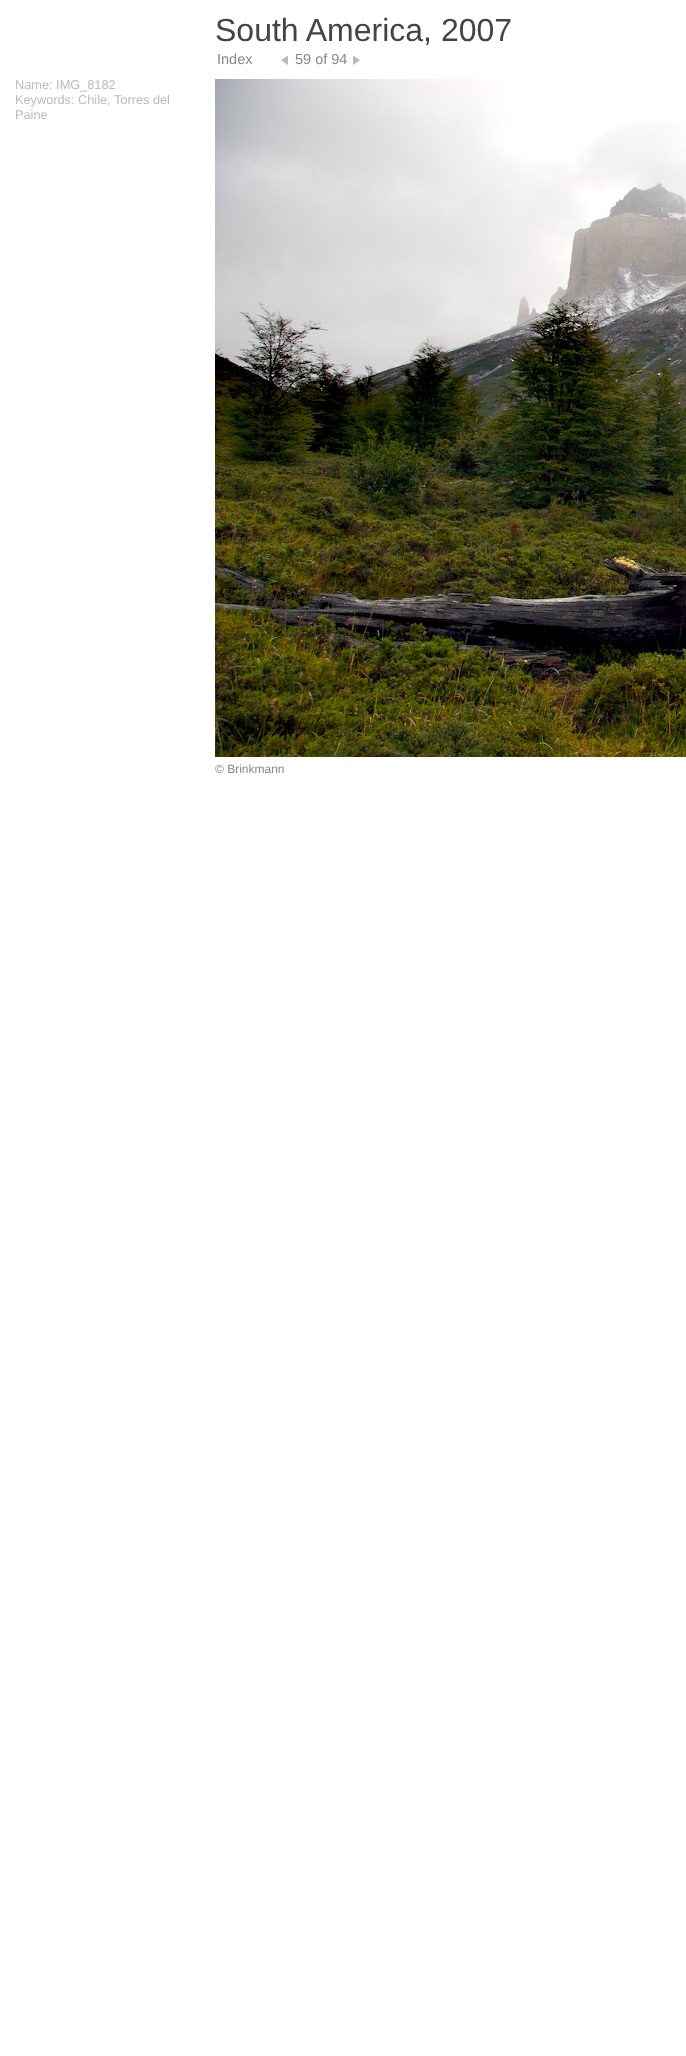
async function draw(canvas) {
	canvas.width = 686;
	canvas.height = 2056;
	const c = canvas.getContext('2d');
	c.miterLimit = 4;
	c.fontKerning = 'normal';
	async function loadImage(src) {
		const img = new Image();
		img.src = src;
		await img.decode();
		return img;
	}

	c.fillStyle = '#fff';
	c.fillRect(0, 0, 686, 2056);
	c.font = '32px Liberation Sans';
	c.fillStyle = '#444';
	c.fillText('South America, 2007', 215, 41);
	c.font = '14.5px Liberation Sans';
	c.fillStyle = '#888';
	c.fillText('Index', 217, 64);
	c.drawImage(await loadImage('img1.png'), 281, 55, 7, 10);
	c.fillText('59 of 94', 295, 64);
	c.drawImage(await loadImage('img2.png'), 353, 55, 7, 10);
	c.font = '12.75px Liberation Sans';
	c.fillStyle = '#bbb';
	for (const [text, x, y] of [
		['Name: IMG_8182', 15, 89],
		['Keywords: Chile, Torres del', 15, 104],
		['Paine', 15, 119],
	]) {
		c.fillText(text, x, y);
	}
	c.drawImage(await loadImage('img3.png'), 215, 79, 471, 678);
	c.font = '12px Liberation Sans';
	c.fillStyle = '#888';
	c.fillText('© Brinkmann', 215, 773);
}

draw(document.querySelector('canvas'));
